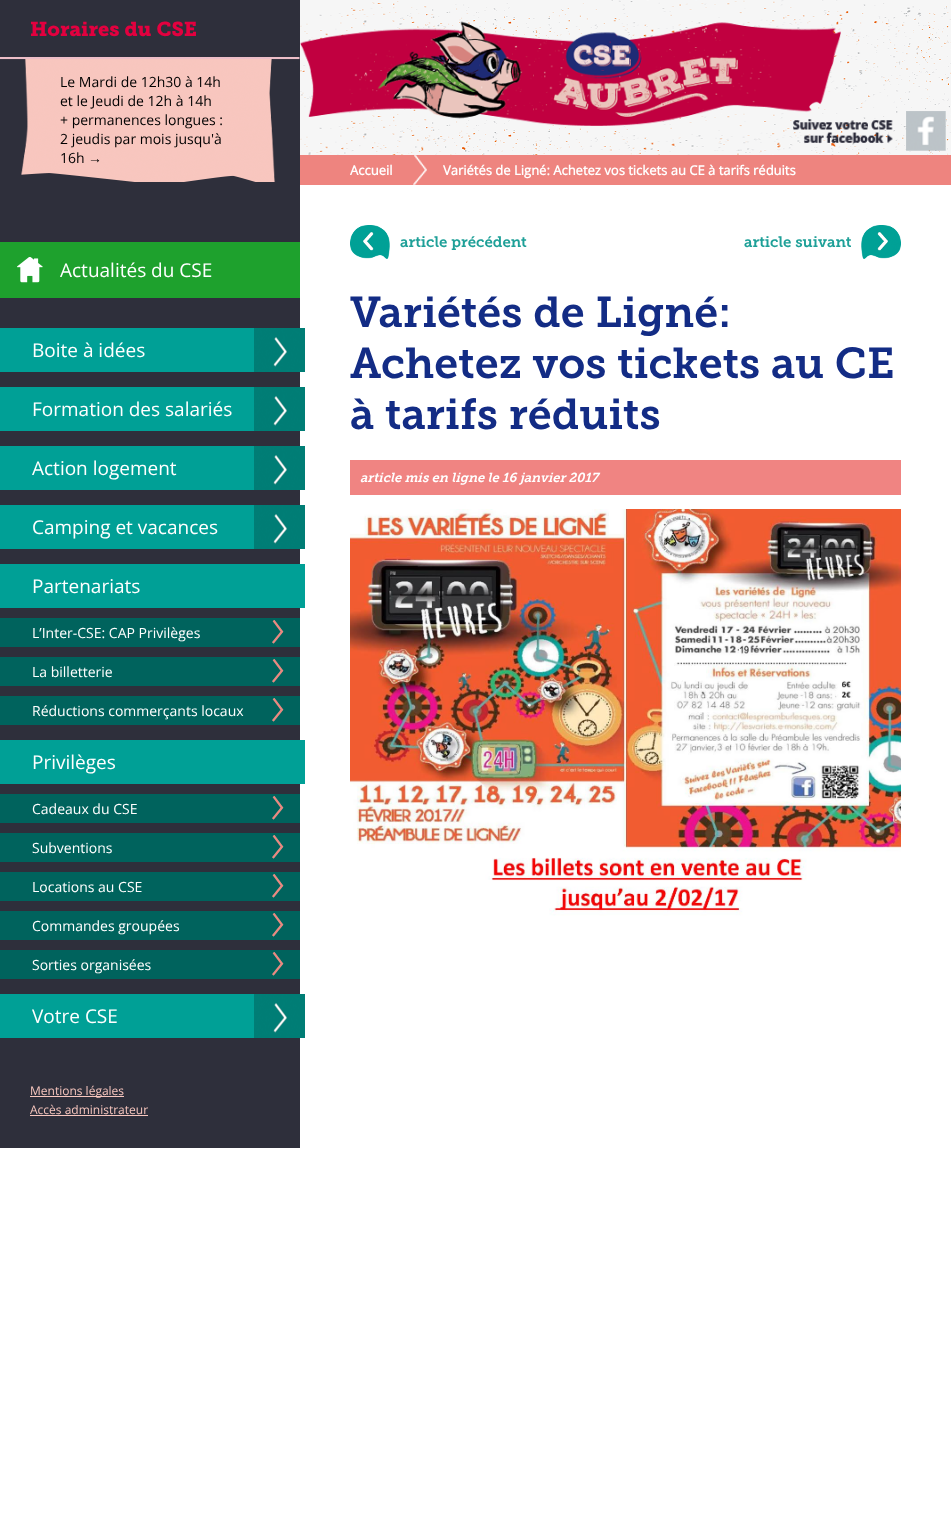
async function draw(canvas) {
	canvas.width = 951;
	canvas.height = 1522;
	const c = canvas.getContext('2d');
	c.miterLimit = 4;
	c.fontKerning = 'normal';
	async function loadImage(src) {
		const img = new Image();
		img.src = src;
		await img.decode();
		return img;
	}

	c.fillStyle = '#fff';
	c.fillRect(0, 0, 951, 1522);
	c.fillStyle = '#2e2f3b';
	c.fillRect(0, 0, 300, 1148);
	c.font = 'bold 20px "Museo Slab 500"';
	c.fillStyle = '#e3003f';
	c.fillText('Horaires du CSE', 30, 36);
	c.drawImage(await loadImage('img1.png'), 0, 57, 300, 125);
	c.font = '14px Open Sans';
	c.fillStyle = '#000';
	for (const [text, x, y] of [
		['Le Mardi de 12h30 à 14h', 60, 87],
		['et le Jeudi de 12h à 14h', 60, 106],
		['+ permanences longues :', 60, 125],
		['2 jeudis par mois jusqu\'à', 60, 144],
		['16h', 60, 163],
	]) {
		c.fillText(text, x, y);
	}
	c.font = '14px Liberation Sans';
	c.fillText('→', 88, 163);
	c.fillStyle = '#1ea12d';
	c.fillRect(0, 242, 300, 56);
	c.drawImage(await loadImage('img2.png'), 17, 257, 26, 26);
	c.font = '19px Open Sans';
	c.fillStyle = '#fff';
	c.fillText('Actualités du CSE', 60, 277);
	c.fillStyle = '#00a096';
	c.fillRect(0, 328, 254, 44);
	c.drawImage(await loadImage('img3.png'), 254, 328, 51, 44);
	c.fillStyle = '#fff';
	c.fillText('Boite à idées', 32, 357);
	c.fillStyle = '#00a096';
	c.fillRect(0, 387, 254, 44);
	c.drawImage(await loadImage('img3.png'), 254, 387, 51, 44);
	c.fillStyle = '#fff';
	c.fillText('Formation des salariés', 32, 416);
	c.fillStyle = '#00a096';
	c.fillRect(0, 446, 254, 44);
	c.drawImage(await loadImage('img3.png'), 254, 446, 51, 44);
	c.fillStyle = '#fff';
	c.fillText('Action logement', 32, 475);
	c.fillStyle = '#00a096';
	c.fillRect(0, 505, 254, 44);
	c.drawImage(await loadImage('img3.png'), 254, 505, 51, 44);
	c.fillStyle = '#fff';
	c.fillText('Camping et vacances', 32, 534);
	c.fillStyle = '#00a096';
	c.fillRect(0, 564, 305, 44);
	c.fillStyle = '#fff';
	c.fillText('Partenariats', 32, 593);
	c.fillStyle = '#00635d';
	c.fillRect(0, 618, 300, 29);
	c.drawImage(await loadImage('img4.png'), 272, 620, 12, 24);
	c.font = '14px Open Sans';
	c.fillStyle = '#fff';
	c.fillText('L’Inter-CSE: CAP Privilèges', 32, 638);
	c.fillStyle = '#00635d';
	c.fillRect(0, 657, 300, 29);
	c.drawImage(await loadImage('img4.png'), 272, 659, 12, 24);
	c.fillStyle = '#fff';
	c.fillText('La billetterie', 32, 677);
	c.fillStyle = '#00635d';
	c.fillRect(0, 696, 300, 29);
	c.drawImage(await loadImage('img4.png'), 272, 698, 12, 24);
	c.fillStyle = '#fff';
	c.fillText('Réductions commerçants locaux', 32, 716);
	c.fillStyle = '#00a096';
	c.fillRect(0, 740, 305, 44);
	c.font = '19px Open Sans';
	c.fillStyle = '#fff';
	c.fillText('Privilèges', 32, 769);
	c.fillStyle = '#00635d';
	c.fillRect(0, 794, 300, 29);
	c.drawImage(await loadImage('img4.png'), 272, 796, 12, 24);
	c.font = '14px Open Sans';
	c.fillStyle = '#fff';
	c.fillText('Cadeaux du CSE', 32, 814);
	c.fillStyle = '#00635d';
	c.fillRect(0, 833, 300, 29);
	c.drawImage(await loadImage('img4.png'), 272, 835, 12, 24);
	c.fillStyle = '#fff';
	c.fillText('Subventions', 32, 853);
	c.fillStyle = '#00635d';
	c.fillRect(0, 872, 300, 29);
	c.drawImage(await loadImage('img4.png'), 272, 874, 12, 24);
	c.fillStyle = '#fff';
	c.fillText('Locations au CSE', 32, 892);
	c.fillStyle = '#00635d';
	c.fillRect(0, 911, 300, 29);
	c.drawImage(await loadImage('img4.png'), 272, 913, 12, 24);
	c.fillStyle = '#fff';
	c.fillText('Commandes groupées', 32, 931);
	c.fillStyle = '#00635d';
	c.fillRect(0, 950, 300, 29);
	c.drawImage(await loadImage('img4.png'), 272, 952, 12, 24);
	c.fillStyle = '#fff';
	c.fillText('Sorties organisées', 32, 970);
	c.fillStyle = '#00a096';
	c.fillRect(0, 994, 254, 44);
	c.drawImage(await loadImage('img3.png'), 254, 994, 51, 44);
	c.font = '19px Open Sans';
	c.fillStyle = '#fff';
	c.fillText('Votre CSE', 32, 1023);
	c.fillStyle = '#f8c7bf';
	c.fillRect(30, 1096, 94, 1);
	c.font = '12px Open Sans';
	c.fillText('Mentions légales', 30, 1095);
	c.fillText('Accès administrateur', 30, 1114);
	c.fillRect(30, 1115, 118, 1);
	c.drawImage(await loadImage('img5.png'), 300, 0, 651, 155);
	c.drawImage(await loadImage('img6.png'), 300, 21, 541, 105);
	c.drawImage(await loadImage('img7.png'), 793, 111, 153, 40);
	c.fillStyle = '#ee847f';
	c.fillRect(300, 155, 651, 30);
	c.font = 'bold 13px Open Sans';
	c.fillStyle = '#fff';
	c.fillText('Accueil', 350, 175);
	c.drawImage(await loadImage('img8.png'), 413, 155, 14, 30);
	c.fillText('Variétés de Ligné: Achetez vos tickets au CE à tarifs réduits', 443, 175);
	c.drawImage(await loadImage('img9.png'), 350, 225, 40, 34);
	c.font = '600 15px "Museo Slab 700"';
	c.fillStyle = '#1ea098';
	c.fillText('article précédent', 400, 247);
	c.drawImage(await loadImage('img10.png'), 861, 225, 40, 34);
	c.fillText('article suivant', 744, 247);
	c.font = '600 43px "Museo Slab 700"';
	c.fillStyle = '#132c85';
	for (const [text, x, y] of [
		['Variétés de Ligné:', 350, 327],
		['Achetez vos tickets au CE', 350, 378],
		['à tarifs réduits', 350, 429],
	]) {
		c.fillText(text, x, y);
	}
	c.fillStyle = '#f08482';
	c.fillRect(350, 460, 551, 35);
	c.font = 'italic 600 13px "Museo Slab 700"';
	c.fillStyle = '#fff';
	c.fillText('article mis en ligne le 16 janvier 2017', 360, 482);
	c.drawImage(await loadImage('img11.png'), 350, 509, 551, 407);
}

draw(document.querySelector('canvas'));
